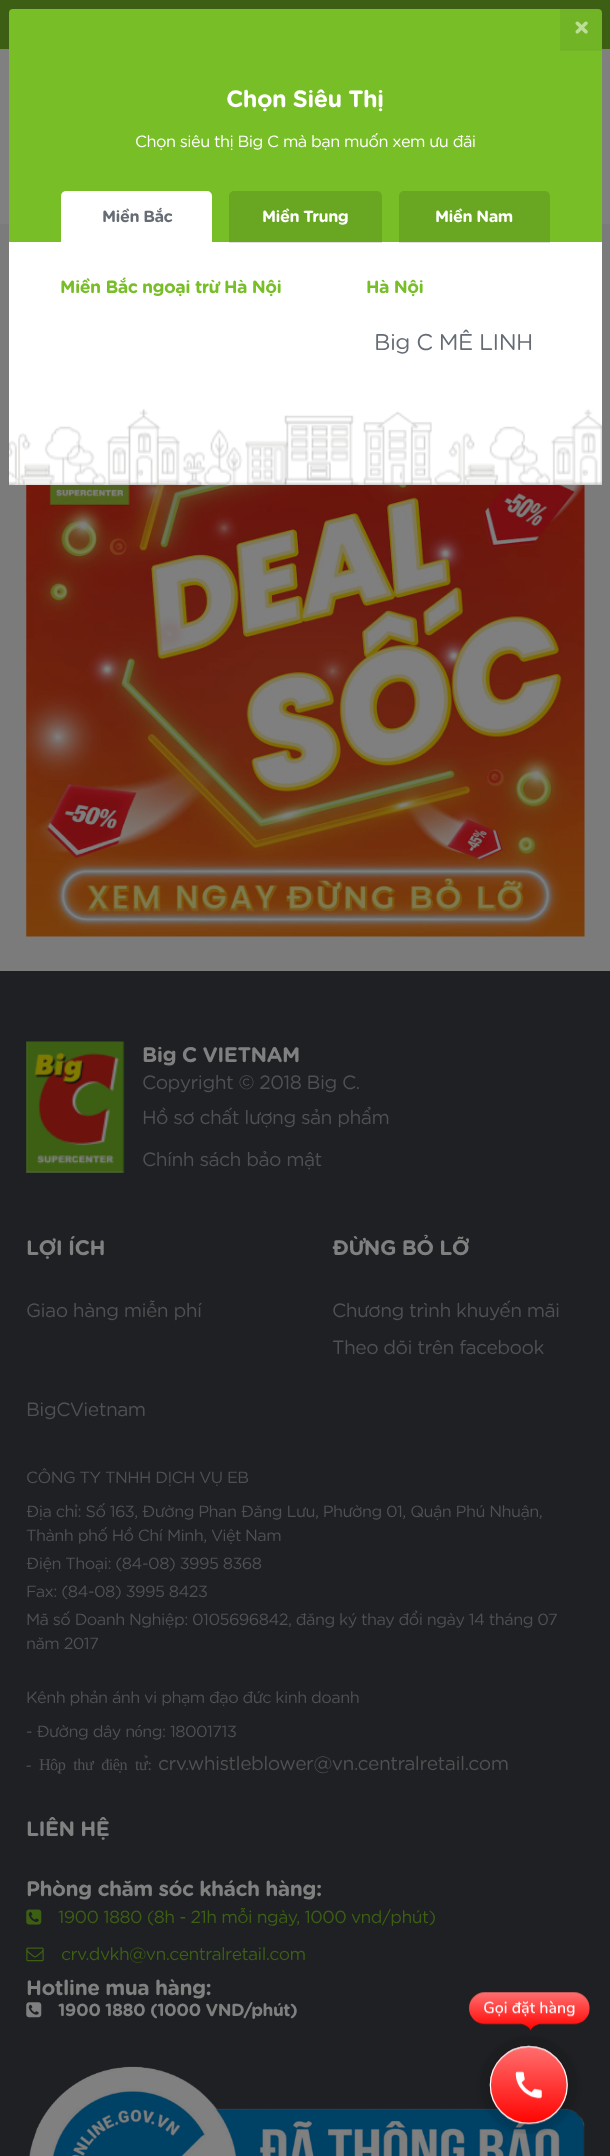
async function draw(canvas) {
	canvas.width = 610;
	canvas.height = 2156;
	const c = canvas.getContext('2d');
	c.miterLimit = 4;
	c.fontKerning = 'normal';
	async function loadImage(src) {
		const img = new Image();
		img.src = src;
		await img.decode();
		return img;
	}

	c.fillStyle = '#7b7b7b';
	c.fillRect(0, 0, 610, 2156);
	c.fillStyle = '#808080';
	c.fillRect(0, 49, 610, 175);
	c.fillStyle = '#3c5f14';
	c.fillRect(0, 0, 610, 49);
	c.fillStyle = '#78be27';
	c.beginPath();
	c.roundRect(9, 9, 593, 182, [4, 4, 0, 0]);
	c.fill();
	c.fillStyle = '#0000000d';
	c.fillRect(560, 9, 42, 42);
	c.font = 'bold 27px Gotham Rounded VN';
	c.fillStyle = '#bcdf93';
	c.fillText('×', 573, 37);
	c.letterSpacing = '-0.53px';
	c.font = 'bold 23.5px Gotham Rounded VN';
	c.fillStyle = '#fff';
	c.fillText('Chọn Siêu Thị', 226, 107);
	c.font = '16.25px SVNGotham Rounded';
	c.fillText('Chọn siêu thị Big C mà bạn muốn xem ưu đãi', 135, 147);
	c.fillStyle = '#78be27';
	c.fillRect(9, 191, 593, 51);
	c.fillStyle = '#fff';
	c.fillRect(9, 242, 593, 243);
	c.beginPath();
	c.roundRect(61, 191, 151, 52, [5, 5, 0, 0]);
	c.fill();
	c.font = 'bold 16.25px Gotham Rounded VN';
	c.fillStyle = '#666c75';
	c.fillText('Miền Bắc', 102, 222);
	c.fillStyle = '#0000001f';
	c.beginPath();
	c.roundRect(229, 191, 153, 52, [5, 5, 0, 0]);
	c.fill();
	c.fillStyle = '#fff';
	c.fillText('Miền Trung', 262, 222);
	c.fillStyle = '#0000001f';
	c.beginPath();
	c.roundRect(399, 191, 151, 52, [5, 5, 0, 0]);
	c.fill();
	c.fillStyle = '#fff';
	c.fillText('Miền Nam', 435, 222);
	c.font = 'bold 17.75px Gotham Rounded VN';
	c.fillStyle = '#78be27';
	c.fillText('Miền Bắc ngoại trừ Hà Nội', 60, 293);
	c.fillText('Hà Nội', 366, 293);
	c.font = '22.75px SVNGotham Rounded';
	c.fillStyle = '#666c75';
	c.fillText('Big C MÊ LINH', 374, 350);
	c.drawImage(await loadImage('img1.png'), 8, 409, 594, 76);
	c.drawImage(await loadImage('img2.png'), 26, 485, 559, 452);
	c.fillStyle = '#1e2023';
	c.fillRect(0, 971, 610, 1185);
	c.drawImage(await loadImage('img3.png'), 26, 1041, 99, 132);
	c.font = 'bold 21px Gotham Rounded VN';
	c.fillStyle = '#808080';
	c.fillText('Big C VIETNAM', 142, 1062);
	c.font = '19.25px SVNGotham Rounded';
	c.fillStyle = '#4f5051';
	for (const [text, x, y] of [
		['Copyright © 2018 Big C.', 142, 1089],
		['Hồ sơ chất lượng sản phẩm', 142, 1124],
		['Chính sách bảo mật', 142, 1166],
	]) {
		c.fillText(text, x, y);
	}
	c.font = 'bold 21px Gotham Rounded VN';
	c.fillStyle = '#808080';
	c.fillText('LỢI ÍCH', 26, 1255);
	c.font = '19.25px SVNGotham Rounded';
	c.fillStyle = '#4f5051';
	c.fillText('Giao hàng miễn phí', 26, 1317);
	c.font = 'bold 21px Gotham Rounded VN';
	c.fillStyle = '#808080';
	c.fillText('ĐỪNG BỎ LỠ', 332, 1255);
	c.font = '19.25px SVNGotham Rounded';
	c.fillStyle = '#4f5051';
	for (const [text, x, y] of [
		['Chương trình khuyến mãi', 332, 1317],
		['Theo dõi trên facebook', 332, 1354],
		['BigCVietnam', 26, 1416],
	]) {
		c.fillText(text, x, y);
	}
	c.font = '16.25px SVNGotham Rounded';
	for (const [text, x, y] of [
		['CÔNG TY TNHH DỊCH VỤ EB', 26, 1483],
		['Địa chỉ: Số 163, Đường Phan Đăng Lưu, Phường 01, Quận Phú Nhuận,', 26, 1517],
		['Thành phố Hồ Chí Minh, Việt', 26, 1541],
		['Nam', 245, 1541],
		['Điện Thoại: (84-08) 3995 8368', 26, 1569],
		['Fax: (84-08) 3995 8423', 26, 1597],
		['Mã số Doanh Nghiệp: 0105696842, đăng ký thay đổi ngày 14 tháng 07', 26, 1625],
		['năm 2017', 26, 1649],
		['Kênh phản ánh vi phạm đạo đức kinh doanh', 26, 1703],
		['- Đường dây nóng: 18001713', 26, 1737],
	]) {
		c.fillText(text, x, y);
	}
	c.wordSpacing = '4.5px';
	c.font = '16.25px Liberation Serif';
	c.fillText('- Hộp thư điện tử:', 26, 1770);
	c.wordSpacing = '0px';
	c.font = '19.25px SVNGotham Rounded';
	c.fillText('crv.whistleblower@vn.centralretail.com', 158, 1770);
	c.font = 'bold 21px Gotham Rounded VN';
	c.fillStyle = '#808080';
	c.fillText('LIÊN HỆ', 26, 1836);
	c.fillText('Phòng chăm sóc khách hàng:', 26, 1896);
	c.drawImage(await loadImage('img4.png'), 26, 1909, 16, 16);
	c.font = '17.5px SVNGotham Rounded';
	c.fillStyle = '#3c5f14';
	c.fillText('1900 1880 (8h - 21h mỗi ngày, 1000 vnd/phút)', 58, 1923);
	c.drawImage(await loadImage('img5.png'), 26, 1947, 18, 15);
	c.fillText('crv.dvkh@vn.centralretail.com', 61, 1960);
	c.font = 'bold 21px Gotham Rounded VN';
	c.fillStyle = '#808080';
	c.fillText('Hotline mua hàng:', 26, 1995);
	c.drawImage(await loadImage('img6.png'), 26, 2002, 16, 16);
	c.font = 'bold 17.5px Gotham Rounded VN';
	c.fillText('1900 1880 (1000 VND/phút)', 58, 2016);
	c.drawImage(await loadImage('img7.png'), 29, 2066, 556, 90);
	c.drawImage(await loadImage('img8.png'), 469, 1992, 121, 142);
}

draw(document.querySelector('canvas'));
